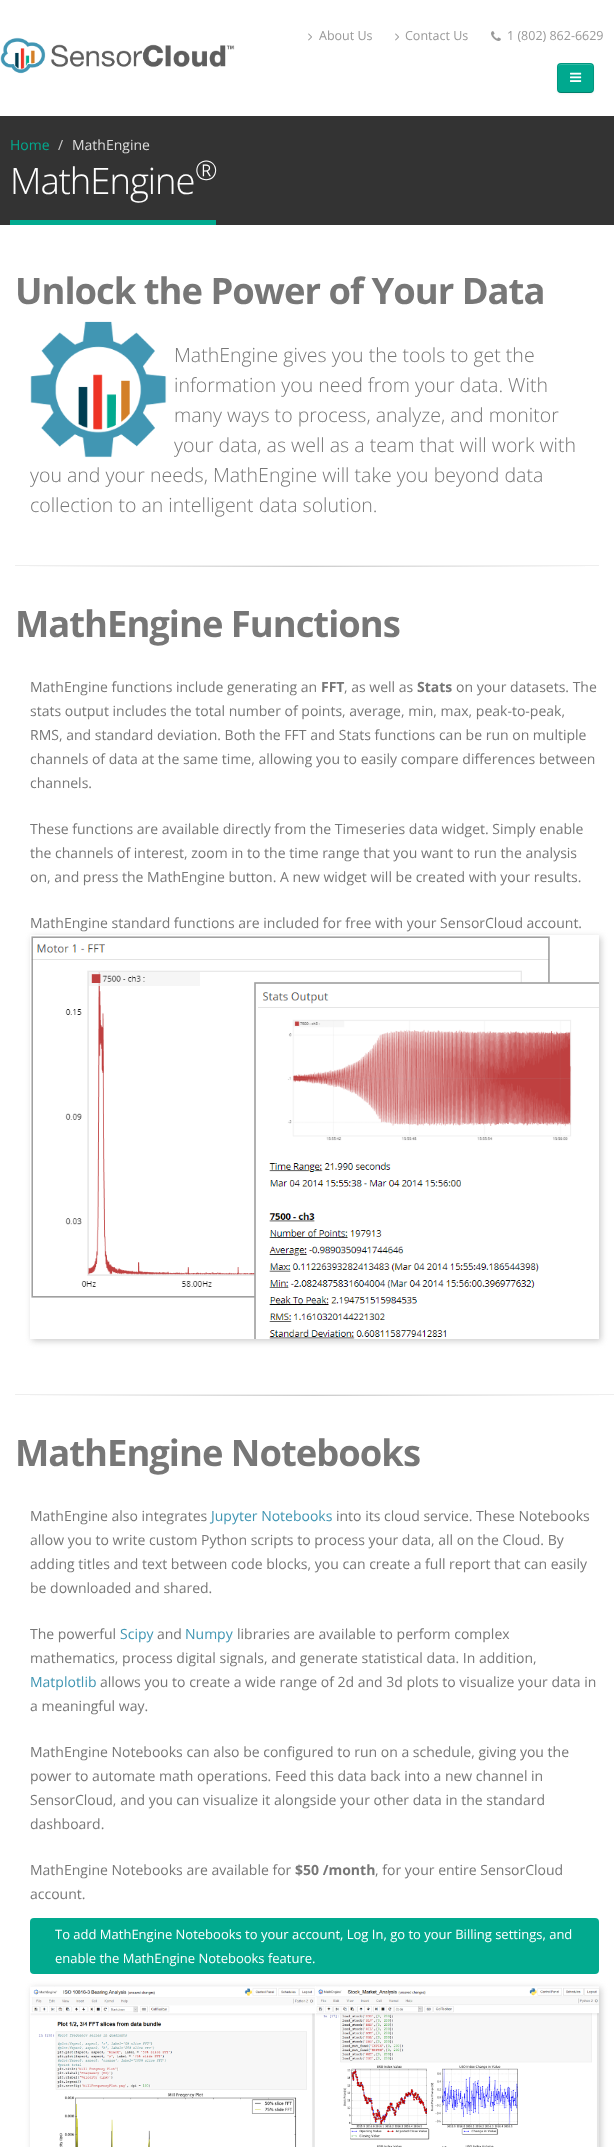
async function draw(canvas) {
	canvas.width = 614;
	canvas.height = 2147;
	const c = canvas.getContext('2d');
	c.miterLimit = 4;
	c.fontKerning = 'normal';
	async function loadImage(src) {
		const img = new Image();
		img.src = src;
		await img.decode();
		return img;
	}
	let gradient;

	c.fillStyle = '#fff';
	c.fillRect(0, 0, 614, 2147);
	c.drawImage(await loadImage('img1.png'), 0, 37, 235, 37);
	c.drawImage(await loadImage('img2.png'), 308, 33, 4, 8);
	c.font = '12.5px Open Sans';
	c.fillStyle = '#999';
	c.fillText('About Us', 319, 40);
	c.drawImage(await loadImage('img2.png'), 395, 33, 4, 8);
	c.fillText('Contact Us', 405, 40);
	c.drawImage(await loadImage('img3.png'), 491, 31, 10, 10);
	c.fillText('1 (802) 862-6629', 507, 40);
	c.fillStyle = '#0000000d';
	c.filter = 'blur(1px)';
	c.beginPath();
	c.roundRect(557, 64, 37, 30, 4);
	c.fill();
	c.filter = 'none';
	c.fillStyle = '#00a98f';
	c.beginPath();
	c.roundRect(557, 63, 37, 30, 4);
	c.fill();
	c.fillStyle = '#33baa5';
	c.beginPath();
	c.moveTo(561, 65);
	c.lineTo(590, 65);
	c.bezierCurveTo(592, 65, 593, 66, 593, 68);
	c.bezierCurveTo(593, 63, 589.5, 64, 585, 64);
	c.lineTo(566, 64);
	c.bezierCurveTo(561.5, 64, 558, 63, 558, 68);
	c.bezierCurveTo(558, 66, 559, 65, 561, 65);
	c.closePath();
	c.fill();
	c.beginPath();
	c.moveTo(592.5, 91.5);
	c.bezierCurveTo(592, 92, 591, 92.5, 590, 92.5);
	c.lineTo(561, 92.5);
	c.bezierCurveTo(560, 92.5, 559, 92, 558.5, 91.5);
	c.strokeStyle = '#00000040';
	c.stroke();
	c.beginPath();
	c.moveTo(558.5, 91.5);
	c.bezierCurveTo(558, 91, 557.5, 90, 557.5, 89);
	c.lineTo(557.5, 67);
	c.bezierCurveTo(557.5, 66, 558, 65, 558.5, 64.5);
	c.bezierCurveTo(559, 64, 560, 63.5, 561, 63.5);
	c.lineTo(590, 63.5);
	c.bezierCurveTo(591, 63.5, 592, 64, 592.5, 64.5);
	c.bezierCurveTo(593, 65, 593.5, 66, 593.5, 67);
	c.lineTo(593.5, 89);
	c.bezierCurveTo(593.5, 90, 593, 91, 592.5, 91.5);
	c.strokeStyle = '#0000001a';
	c.stroke();
	c.drawImage(await loadImage('img4.png'), 570, 72, 12, 10);
	c.fillStyle = '#333';
	c.fillRect(0, 116, 614, 109);
	c.font = '14px Open Sans';
	c.fillStyle = '#02aa8f';
	c.fillText('Home', 10, 150);
	c.fillStyle = '#ccc';
	c.fillText('/', 58, 150);
	c.fillStyle = '#ddd';
	c.fillText('MathEngine', 72, 150);
	c.fillStyle = '#02aa8f';
	c.fillRect(10, 220, 206, 5);
	c.letterSpacing = '-1px';
	c.font = '300 36.4px Open Sans';
	c.fillStyle = '#fff';
	c.fillText('MathEngine', 10, 194);
	c.font = '300 27px Open Sans';
	c.fillText('®', 195, 180);
	c.font = 'bold 36.4px Open Sans';
	c.fillStyle = '#777';
	c.fillText('Unlock the Power of Your Data', 15, 304);
	c.drawImage(await loadImage('img5.png'), 30, 321, 137, 137);
	c.letterSpacing = '0px';
	c.font = '300 19.5px Open Sans';
	for (const [text, x, y] of [
		['MathEngine gives you the tools to get the', 174, 362],
		['information you need from your data. With', 174, 392],
		['many ways to process, analyze, and monitor', 174, 422],
		['your data, as well as a team that will work with', 174, 452],
		['you and your needs, MathEngine will take you beyond data', 30, 482],
		['collection to an intelligent data solution.', 30, 512],
	]) {
		c.fillText(text, x, y);
	}
	gradient = c.createLinearGradient(15, 567, 599, 567);
	gradient.addColorStop(0, '#fff');
	gradient.addColorStop(0.5, '#ccc');
	gradient.addColorStop(1, '#fff');
	c.fillStyle = gradient;
	c.fillRect(29, 566, 556, 1);
	c.fillStyle = '#eee';
	c.fillRect(15, 565, 584, 1);
	c.letterSpacing = '-1px';
	c.font = 'bold 36.4px Open Sans';
	c.fillStyle = '#777';
	c.fillText('MathEngine Functions', 15, 637);
	c.letterSpacing = '0px';
	c.font = '14px Open Sans';
	c.fillText('MathEngine functions include generating an', 30, 692);
	c.font = 'bold 14px Open Sans';
	c.fillText('FFT', 321, 692);
	c.font = '14px Open Sans';
	c.fillText(', as well as', 344, 692);
	c.font = 'bold 14px Open Sans';
	c.fillText('Stats', 417, 692);
	c.font = '14px Open Sans';
	for (const [text, x, y] of [
		['on your datasets. The', 456, 692],
		['stats output includes the total number of points, average, min, max, peak-to-peak,', 30, 716],
		['RMS, and standard deviation. Both the FFT and Stats functions can be run on multiple', 30, 740],
		['channels of data at the same time, allowing you to easily compare differences between', 30, 764],
		['channels.', 30, 788],
		['These functions are available directly from the Timeseries data widget. Simply enable', 30, 834],
		['the channels of interest, zoom in to the time range that you want to run the analysis', 30, 858],
		['on, and press the MathEngine button. A new widget will be created with your results.', 30, 882],
		['MathEngine standard functions are included for free with your SensorCloud account.', 30, 928],
	]) {
		c.fillText(text, x, y);
	}
	c.save();
	c.beginPath();
	c.moveTo(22, 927);
	c.lineTo(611, 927);
	c.lineTo(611, 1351);
	c.lineTo(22, 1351);
	c.closePath();
	c.moveTo(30, 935);
	c.lineTo(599, 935);
	c.lineTo(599, 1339);
	c.lineTo(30, 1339);
	c.closePath();
	c.clip('evenodd');
	c.fillStyle = '#ccc';
	c.filter = 'blur(3px)';
	c.beginPath();
	c.rect(32, 937, 569, 404);
	c.fill();
	c.filter = 'none';
	c.restore();
	c.drawImage(await loadImage('img6.png'), 31, 936, 568, 403);
	gradient = c.createLinearGradient(15, 1396, 614, 1396);
	gradient.addColorStop(0, '#fff');
	gradient.addColorStop(0.5, '#ccc');
	gradient.addColorStop(1, '#fff');
	c.fillStyle = gradient;
	c.fillRect(30, 1395, 569, 1);
	c.fillStyle = '#eee';
	c.fillRect(15, 1394, 599, 1);
	c.letterSpacing = '-1px';
	c.font = 'bold 36.4px Open Sans';
	c.fillStyle = '#777';
	c.fillText('MathEngine Notebooks', 15, 1466);
	c.letterSpacing = '0px';
	c.font = '14px Open Sans';
	c.fillText('MathEngine also integrates', 30, 1521);
	c.fillStyle = '#4196b3';
	c.fillText('Jupyter Notebooks', 211, 1521);
	c.fillStyle = '#777';
	for (const [text, x, y] of [
		['into its cloud service. These Notebooks', 336, 1521],
		['allow you to write custom Python scripts to process your data, all on the Cloud. By', 30, 1545],
		['adding titles and text between code blocks, you can create a full report that can easily', 30, 1569],
		['be downloaded and shared.', 30, 1593],
		['The powerful', 30, 1639],
	]) {
		c.fillText(text, x, y);
	}
	c.fillStyle = '#4196b3';
	c.fillText('Scipy', 120, 1639);
	c.fillStyle = '#777';
	c.fillText('and', 157, 1639);
	c.fillStyle = '#4196b3';
	c.fillText('Numpy', 185, 1639);
	c.fillStyle = '#777';
	c.fillText('libraries are available to perform complex', 237, 1639);
	c.fillText('mathematics, process digital signals, and generate statistical data. In addition,', 30, 1663);
	c.fillStyle = '#4196b3';
	c.fillText('Matplotlib', 30, 1687);
	c.fillStyle = '#777';
	for (const [text, x, y] of [
		['allows you to create a wide range of 2d and 3d plots to visualize your data in', 100, 1687],
		['a meaningful way.', 30, 1711],
		['MathEngine Notebooks can also be configured to run on a schedule, giving you the', 30, 1757],
		['power to automate math operations. Feed this data back into a new channel in', 30, 1781],
		['SensorCloud, and you can visualize it alongside your other data in the standard', 30, 1805],
		['dashboard.', 30, 1829],
		['MathEngine Notebooks are available for', 30, 1875],
	]) {
		c.fillText(text, x, y);
	}
	c.font = 'bold 14px Open Sans';
	c.fillText('$50 /month', 295, 1875);
	c.font = '14px Open Sans';
	c.fillText(', for your entire SensorCloud', 375, 1875);
	c.fillText('account.', 30, 1899);
	c.fillStyle = '#02aa8f';
	c.beginPath();
	c.roundRect(30, 1918, 569, 56, 4);
	c.fill();
	c.font = '13px Open Sans';
	c.fillStyle = '#fff';
	c.fillText('To add MathEngine Notebooks to your account, Log In, go to your Billing settings, and', 55, 1939);
	c.fillText('enable the MathEngine Notebooks feature.', 55, 1963);
	c.fillStyle = '#ccc';
	c.filter = 'blur(3px)';
	c.beginPath();
	c.rect(32, 1988, 569, 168);
	c.fill();
	c.filter = 'none';
	c.drawImage(await loadImage('img7.png'), 30, 1986, 569, 161);
}

draw(document.querySelector('canvas'));
